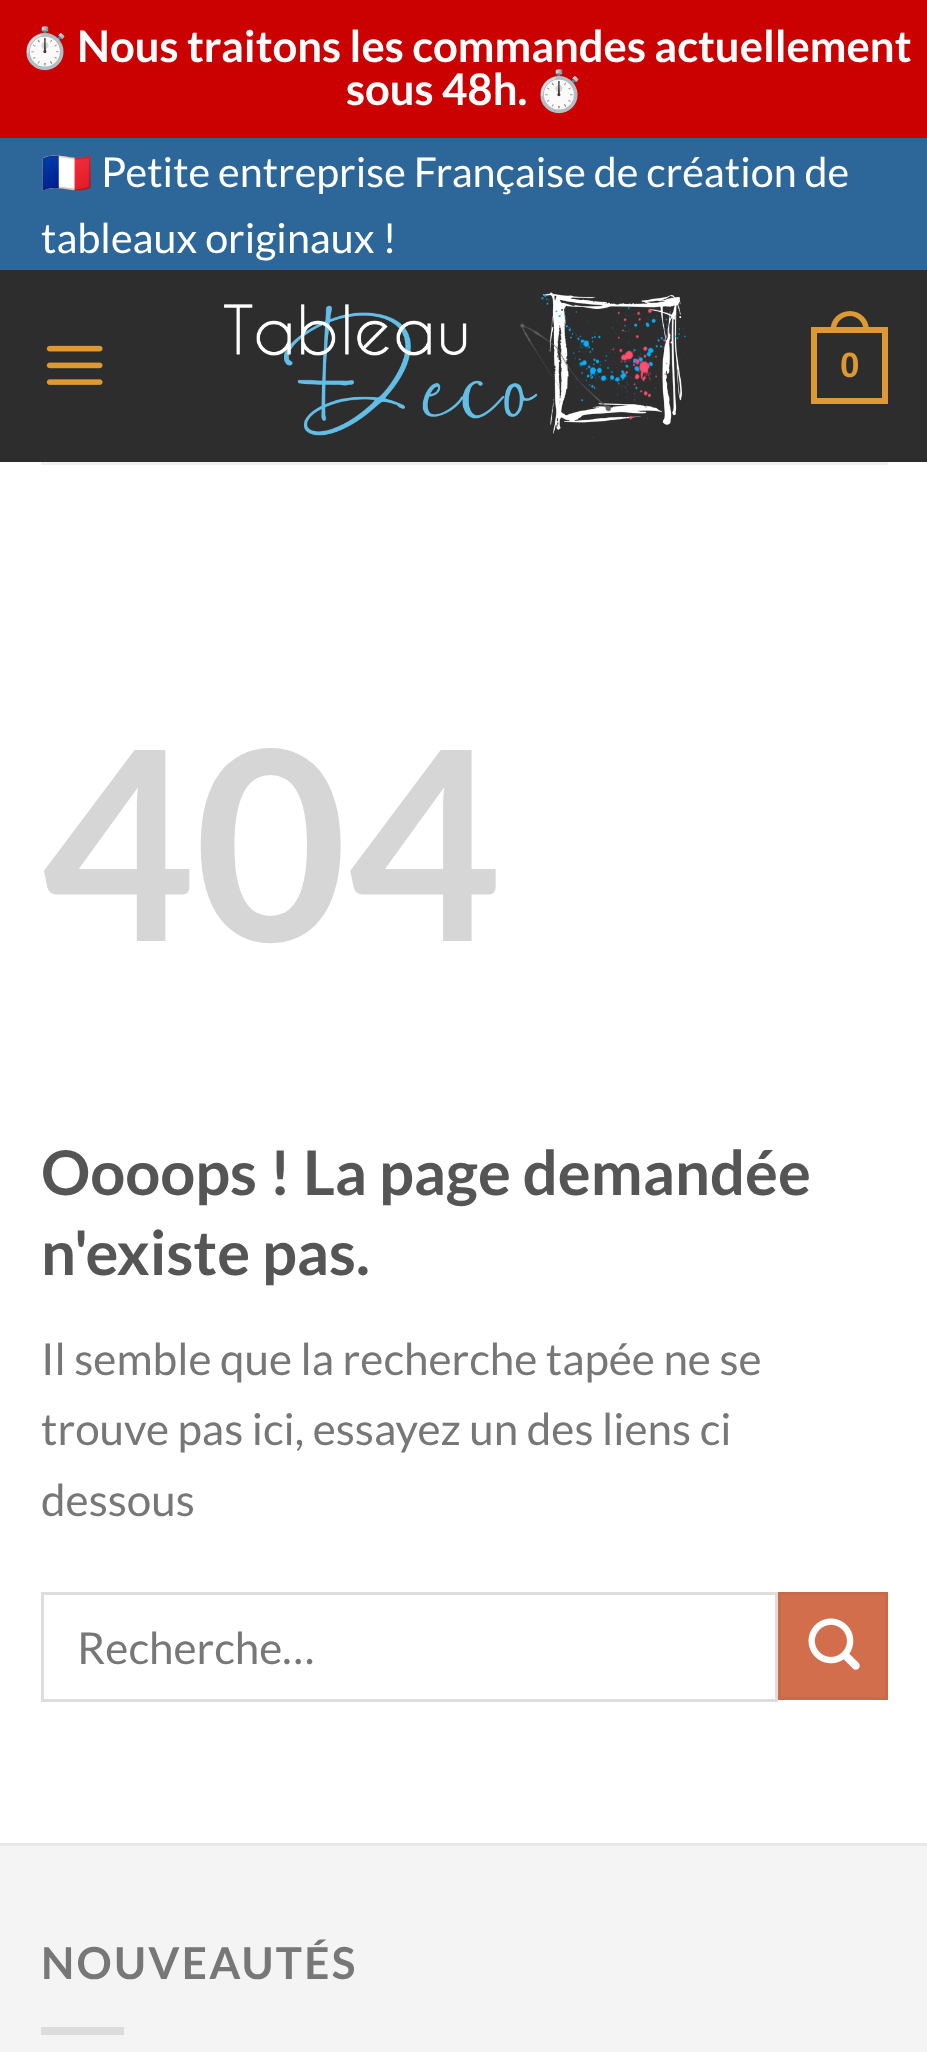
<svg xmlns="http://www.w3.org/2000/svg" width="927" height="2052">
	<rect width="100%" height="100%" fill="#FFFFFF" />
	<rect x="0" y="0" width="927" height="138" fill="#CB0000" />
	<text x="20" y="62" font-family="Noto Color Emoji" font-size="40" fill="#FFFFFF">⏱️</text>
	<g font-family="Lato" font-size="43.6" font-weight="700" fill="#FFFFFF">
		<text x="77" y="62">Nous traitons les commandes actuellement</text>
		<text x="346" y="105">sous 48h.</text>
	</g>
	<text x="534" y="105" font-family="Noto Color Emoji" font-size="40" fill="#FFFFFF">⏱️</text>
	<rect x="0" y="138" width="927" height="132" fill="#2D6799" />
	<text x="41" y="187" font-family="Noto Color Emoji" font-size="41.25" fill="#FFFFFF">🇫🇷</text>
	<g font-family="Lato" font-size="41.25" fill="#FFFFFF">
		<text x="101" y="187">Petite entreprise Française de création de</text>
		<text x="41" y="253">tableaux originaux !</text>
	</g>
	<rect x="0" y="270" width="927" height="192" fill="#2D2D2D" />
	<image x="46" y="345" width="57" height="40" href="assets/img1.png" />
	<image x="224" y="292" width="468" height="146" href="assets/img2.png" />
	<rect x="814" y="330" width="71" height="71" fill="none" stroke="#DD9933" stroke-width="6" />
	<path d="M850 311C860.5 311 869 319.5 869 330V333H830.5V330C830.5 319.5 839 311 850 311ZM850 316C857.5 316 863.5 322.5 863.5 330V333H836V330C836 322.5 842 316 850 316Z" fill="#DD9933" fill-rule="evenodd" />
	<text x="840" y="377" font-family="Liberation Sans" font-size="35" font-weight="700" fill="#DD9933">0</text>
	<rect x="41" y="462" width="847" height="3" fill="#F1F1F1" />
	<text x="41" y="941" font-family="Lato" font-size="264" font-weight="700" fill="#D6D6D6">404</text>
	<g font-family="Lato" font-size="61.6" font-weight="700" fill="#555555">
		<text x="41" y="1195">Oooops ! La page demandée</text>
		<text x="41" y="1275">n'existe pas.</text>
	</g>
	<g font-family="Lato" font-size="44" fill="#777777">
		<text x="41" y="1375">Il semble que la recherche tapée ne se</text>
		<text x="41" y="1445">trouve pas ici, essayez un des liens ci</text>
		<text x="41" y="1516">dessous</text>
	</g>
	<rect x="42.5" y="1593.5" width="734" height="107" fill="none" stroke="#DDDDDD" stroke-width="3" />
	<text x="77" y="1664" font-family="Lato" font-size="44" fill="#777777">Recherche…</text>
	<rect x="779.5" y="1593.5" width="107" height="105" fill="#D26E4B" stroke="#C86947" stroke-width="3" />
	<image x="808" y="1618" width="52" height="52" href="assets/img3.png" />
	<rect x="0" y="1846" width="927" height="206" fill="#F4F4F4" />
	<rect x="0" y="1843" width="927" height="3" fill="#E8E8E8" />
	<text x="41" y="1979" font-family="Lato" font-size="44" font-weight="700" letter-spacing="2.25" fill="#777777">NOUVEAUTÉS</text>
	<rect x="41" y="2027" width="83" height="8" fill="#DCDCDC" />
</svg>
